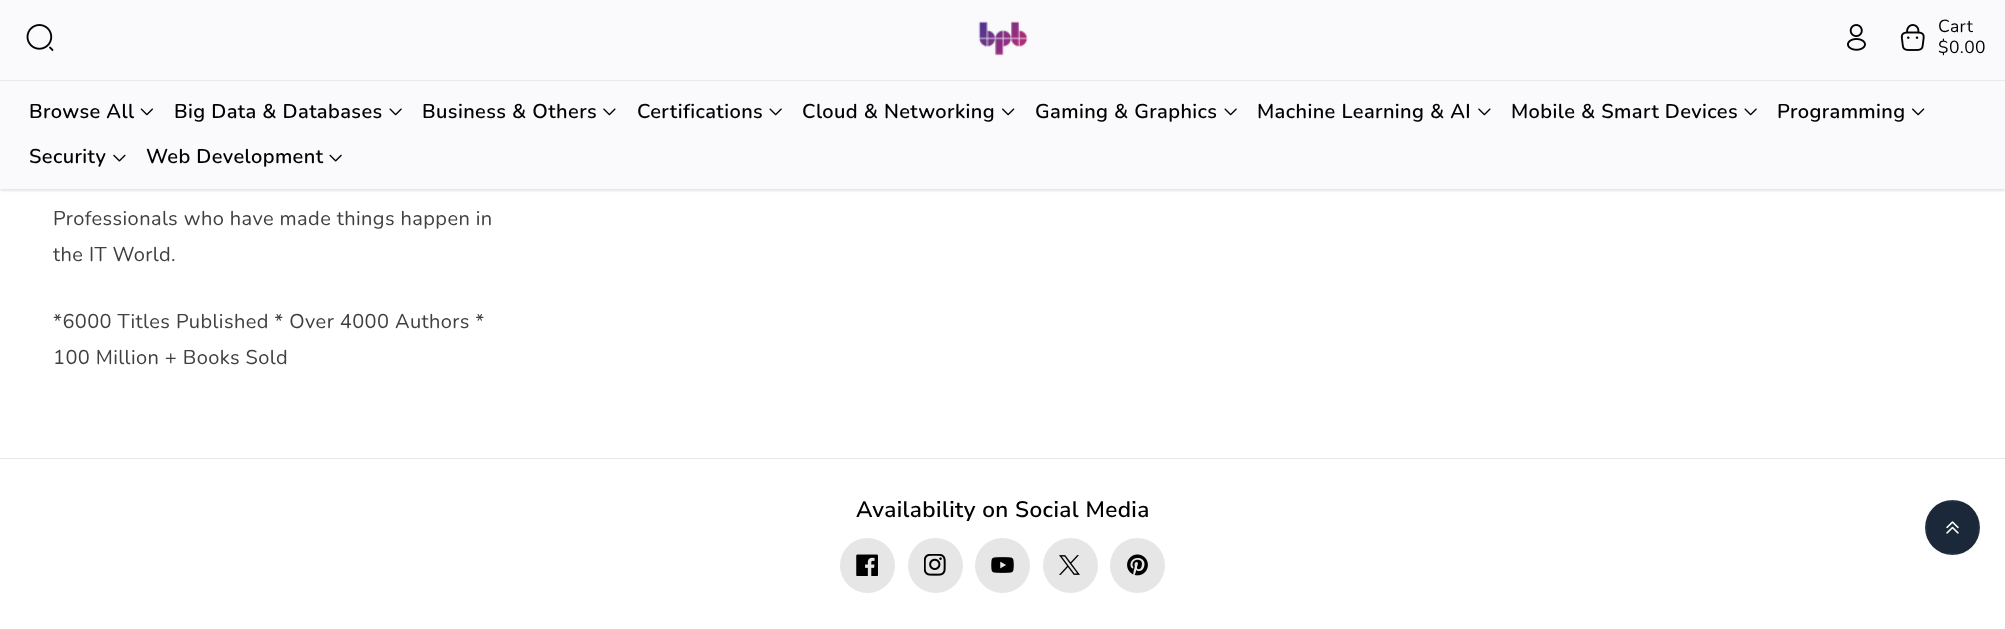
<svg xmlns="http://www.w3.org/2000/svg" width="2005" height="629">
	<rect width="100%" height="100%" fill="#FFFFFF" />
	<rect x="0" y="3" width="2005" height="188" fill="#000000" fill-opacity="0.1" filter="blur(1px)" />
	<rect x="0" y="0" width="2005" height="189" fill="#FAFAFC" />
	<image x="26" y="24" width="28" height="27" href="assets/img1.png" />
	<image x="978" y="21" width="50" height="35" href="assets/img2.png" />
	<image x="1847" y="24" width="19" height="27" href="assets/img3.png" />
	<image x="1900" y="24" width="25" height="27" href="assets/img4.png" />
	<g font-family="Nunito" font-size="17.5" letter-spacing="0.4" fill="#000000">
		<text x="1938" y="32">Cart</text>
		<text x="1938" y="53">$0.00</text>
	</g>
	<rect x="0" y="80" width="2005" height="1" fill="#E9E9EA" />
	<text x="29" y="118" font-family="Nunito" font-size="20" font-weight="600" letter-spacing="0.4" fill="#000000">Browse All</text>
	<image x="140" y="108" width="13" height="8" href="assets/img5.png" />
	<text x="174" y="118" font-family="Nunito" font-size="20" font-weight="600" letter-spacing="0.4" fill="#000000">Big Data &amp; Databases</text>
	<image x="389" y="108" width="13" height="8" href="assets/img6.png" />
	<text x="422" y="118" font-family="Nunito" font-size="20" font-weight="600" letter-spacing="0.4" fill="#000000">Business &amp; Others</text>
	<image x="603" y="108" width="13" height="8" href="assets/img7.png" />
	<text x="637" y="118" font-family="Nunito" font-size="20" font-weight="600" letter-spacing="0.4" fill="#000000">Certifications</text>
	<image x="769" y="108" width="13" height="8" href="assets/img6.png" />
	<text x="802" y="118" font-family="Nunito" font-size="20" font-weight="600" letter-spacing="0.4" fill="#000000">Cloud &amp; Networking</text>
	<image x="1002" y="108" width="13" height="8" href="assets/img8.png" />
	<text x="1035" y="118" font-family="Nunito" font-size="20" font-weight="600" letter-spacing="0.4" fill="#000000">Gaming &amp; Graphics</text>
	<image x="1224" y="108" width="13" height="8" href="assets/img6.png" />
	<text x="1257" y="118" font-family="Nunito" font-size="20" font-weight="600" letter-spacing="0.4" fill="#000000">Machine Learning &amp; AI</text>
	<image x="1478" y="108" width="13" height="8" href="assets/img7.png" />
	<text x="1511" y="118" font-family="Nunito" font-size="20" font-weight="600" letter-spacing="0.4" fill="#000000">Mobile &amp; Smart Devices</text>
	<image x="1744" y="108" width="13" height="8" href="assets/img6.png" />
	<text x="1777" y="118" font-family="Nunito" font-size="20" font-weight="600" letter-spacing="0.4" fill="#000000">Programming</text>
	<image x="1912" y="108" width="13" height="8" href="assets/img8.png" />
	<text x="29" y="163" font-family="Nunito" font-size="20" font-weight="600" letter-spacing="0.4" fill="#000000">Security</text>
	<image x="113" y="154" width="13" height="8" href="assets/img9.png" />
	<text x="146" y="163" font-family="Nunito" font-size="20" font-weight="600" letter-spacing="0.4" fill="#000000">Web Development</text>
	<image x="329" y="154" width="13" height="8" href="assets/img10.png" />
	<g font-family="Nunito" font-size="20" letter-spacing="0.4" fill="#404040">
		<text x="53" y="225">Professionals who have made things happen in</text>
		<text x="53" y="261">the IT World.</text>
		<text x="53" y="328">*6000 Titles Published * Over 4000 Authors *</text>
		<text x="53" y="364">100 Million + Books Sold</text>
	</g>
	<rect x="0" y="458" width="2005" height="1" fill="#E6E6E6" />
	<text x="856" y="517" font-family="Nunito Sans" font-size="22.5" font-weight="600" letter-spacing="0.4" fill="#000000">Availability on Social Media</text>
	<circle cx="867.5" cy="565.5" r="27.5" fill="#E6E6E6" />
	<image x="856" y="554" width="22" height="22" href="assets/img11.png" />
	<circle cx="935.5" cy="565.5" r="27.5" fill="#E6E6E6" />
	<image x="924" y="554" width="22" height="22" href="assets/img12.png" />
	<circle cx="1002.5" cy="565.5" r="27.5" fill="#E6E6E6" />
	<image x="991" y="557" width="23" height="16" href="assets/img13.png" />
	<circle cx="1070.5" cy="565.5" r="27.5" fill="#E6E6E6" />
	<image x="1059" y="555" width="21" height="20" href="assets/img14.png" />
	<circle cx="1137.5" cy="565.5" r="27.5" fill="#E6E6E6" />
	<image x="1127" y="554" width="21" height="22" href="assets/img15.png" />
	<circle cx="1952.5" cy="527.5" r="27.5" fill="#1B283A" />
	<image x="1946" y="521" width="13" height="13" href="assets/img16.png" />
	<rect x="1925.5" y="500.5" width="54" height="54" fill="none" stroke="#FFFFFF" stroke-opacity="0.05" />
	<rect x="1926" y="501" width="53" height="53" fill="none" stroke="#FFFFFF" stroke-opacity="0.05" stroke-width="2" />
</svg>
